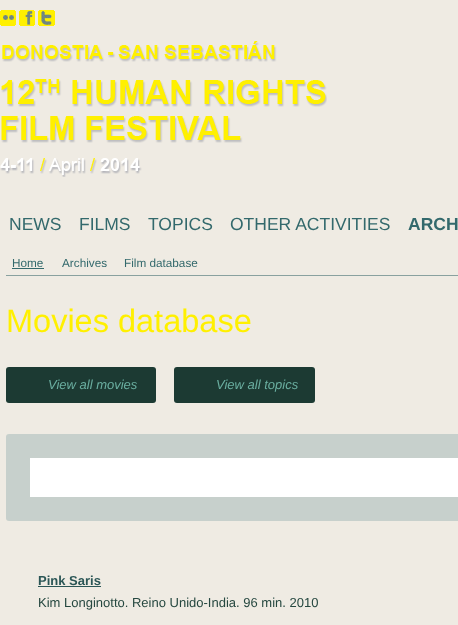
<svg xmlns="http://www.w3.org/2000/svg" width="458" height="625">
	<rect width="100%" height="100%" fill="#EFEBE3" />
	<image x="0" y="10" width="16" height="16" href="assets/img1.png" />
	<image x="19" y="10" width="16" height="16" href="assets/img2.png" />
	<image x="38" y="10" width="17" height="16" href="assets/img3.png" />
	<image x="0" y="41" width="327" height="136" href="assets/img4.png" />
	<g font-family="Liberation Sans" font-size="17.5" fill="#33696C">
		<text x="9" y="230">NEWS</text>
		<text x="79" y="230">FILMS</text>
		<text x="148" y="230">TOPICS</text>
		<text x="230" y="230">OTHER ACTIVITIES</text>
	</g>
	<text x="408" y="230" font-family="Liberation Sans" font-size="17.5" font-weight="700" fill="#33696C">ARCH</text>
	<rect x="6" y="275" width="452" height="1" fill="#89A19F" />
	<text x="12" y="267" font-family="Liberation Sans" font-size="11.75" fill="#33696C">Home</text>
	<rect x="12" y="268" width="32" height="1" fill="#33696C" />
	<g font-family="Liberation Sans" font-size="11.75" fill="#33696C">
		<text x="62" y="267">Archives</text>
		<text x="124" y="267">Film database</text>
	</g>
	<text x="6" y="332" font-family="Liberation Sans" font-size="32.5" fill="#FFF000">Movies database</text>
	<rect x="6" y="367" width="150" height="36" rx="3" fill="#1C3A33" />
	<text x="48" y="389" font-family="Liberation Sans" font-size="13" font-style="italic" fill="#6AAEA0">View all movies</text>
	<rect x="174" y="367" width="141" height="36" rx="3" fill="#1C3A33" />
	<text x="216" y="389" font-family="Liberation Sans" font-size="13" font-style="italic" fill="#6AAEA0">View all topics</text>
	<rect x="6" y="434" width="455" height="87" rx="3" fill="#C7D0CC" />
	<rect x="30" y="458" width="428" height="39" fill="#FFFFFF" />
	<text x="38" y="585" font-family="Liberation Sans" font-size="13" font-weight="700" fill="#2B5656">Pink Saris</text>
	<rect x="38" y="586" width="63" height="1" fill="#2B5656" />
	<text x="38" y="607" font-family="Liberation Sans" font-size="13" fill="#264840">Kim Longinotto. Reino Unido-India. 96 min. 2010</text>
</svg>
